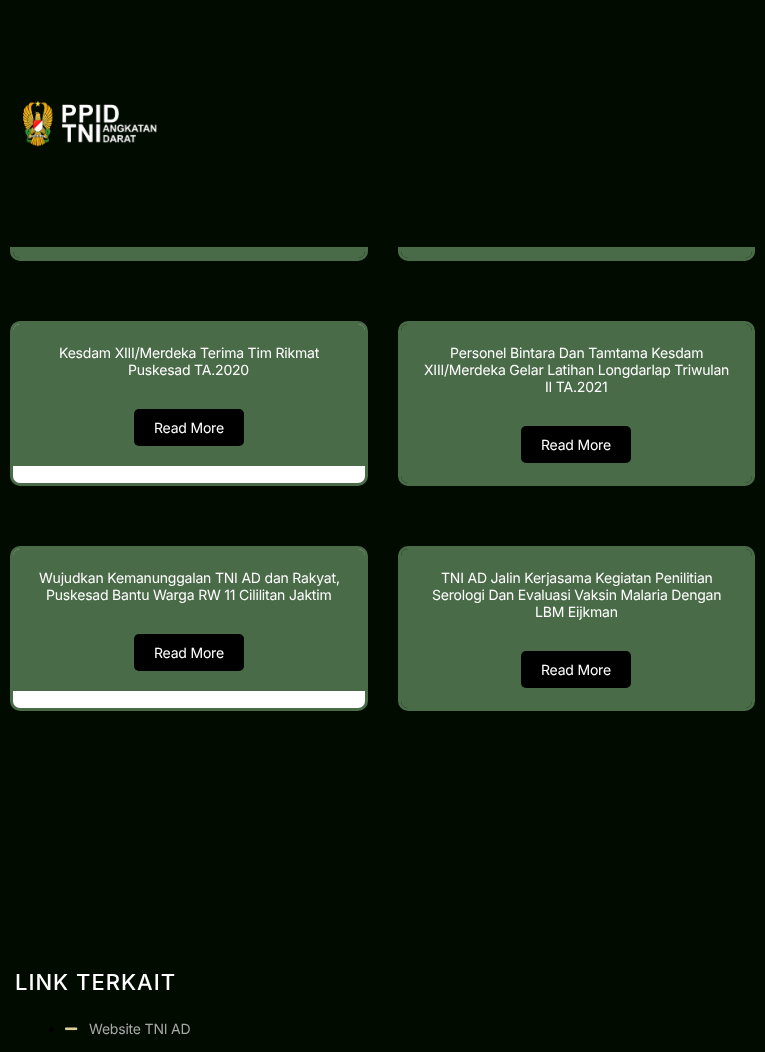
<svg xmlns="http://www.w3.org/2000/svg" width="765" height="1052">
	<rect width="100%" height="100%" fill="#010B00" />
	<rect x="11.5" y="114.5" width="355" height="145" rx="8.5" fill="none" stroke="#4A6B48" stroke-width="3" />
	<rect x="13" y="116" width="352" height="142" rx="7" fill="#4A6B48" />
	<rect x="399.5" y="114.5" width="354" height="145" rx="8.5" fill="none" stroke="#4A6B48" stroke-width="3" />
	<rect x="401" y="116" width="351" height="142" rx="7" fill="#4A6B48" />
	<rect x="10" y="113" width="745" height="134" fill="#010B00" />
	<image x="22" y="100" width="135" height="47" href="assets/img1.png" />
	<rect x="11.5" y="322.5" width="355" height="162" rx="8.5" fill="#FFFFFF" stroke="#4A6B48" stroke-width="3" />
	<path d="M20 324H358C362 324 365 327 365 331V466H13V331C13 327 16 324 20 324Z" fill="#4A6B48" />
	<g font-family="Inter" font-size="14" letter-spacing="-0.2" fill="#FFFFFF">
		<text x="59" y="358">Kesdam XIII/Merdeka Terima Tim Rikmat</text>
		<text x="128" y="375">Puskesad TA.2020</text>
	</g>
	<rect x="134" y="409" width="110" height="37" rx="5" fill="#000000" />
	<text x="154" y="433" font-family="Inter" font-size="14" letter-spacing="-0.2" fill="#FFFFFF">Read More</text>
	<rect x="399.5" y="322.5" width="354" height="162" rx="8.5" fill="none" stroke="#4A6B48" stroke-width="3" />
	<rect x="401" y="324" width="351" height="159" rx="7" fill="#4A6B48" />
	<g font-family="Inter" font-size="14" letter-spacing="-0.2" fill="#FFFFFF">
		<text x="450" y="358">Personel Bintara Dan Tamtama Kesdam</text>
		<text x="424" y="375">XIII/Merdeka Gelar Latihan Longdarlap Triwulan</text>
		<text x="545" y="392">II TA.2021</text>
	</g>
	<rect x="521" y="426" width="110" height="37" rx="5" fill="#000000" />
	<text x="541" y="450" font-family="Inter" font-size="14" letter-spacing="-0.2" fill="#FFFFFF">Read More</text>
	<rect x="11.5" y="547.5" width="355" height="162" rx="8.5" fill="#FFFFFF" stroke="#4A6B48" stroke-width="3" />
	<path d="M20 549H358C362 549 365 552 365 556V691H13V556C13 552 16 549 20 549Z" fill="#4A6B48" />
	<g font-family="Inter" font-size="14" letter-spacing="-0.2" fill="#FFFFFF">
		<text x="39" y="583">Wujudkan Kemanunggalan TNI AD dan Rakyat,</text>
		<text x="46" y="600">Puskesad Bantu Warga RW 11 Cililitan Jaktim</text>
	</g>
	<rect x="134" y="634" width="110" height="37" rx="5" fill="#000000" />
	<text x="154" y="658" font-family="Inter" font-size="14" letter-spacing="-0.2" fill="#FFFFFF">Read More</text>
	<rect x="399.5" y="547.5" width="354" height="162" rx="8.5" fill="none" stroke="#4A6B48" stroke-width="3" />
	<rect x="401" y="549" width="351" height="159" rx="7" fill="#4A6B48" />
	<g font-family="Inter" font-size="14" letter-spacing="-0.2" fill="#FFFFFF">
		<text x="441" y="583">TNI AD Jalin Kerjasama Kegiatan Penilitian</text>
		<text x="432" y="600">Serologi Dan Evaluasi Vaksin Malaria Dengan</text>
		<text x="535" y="617">LBM Eijkman</text>
	</g>
	<rect x="521" y="651" width="110" height="37" rx="5" fill="#000000" />
	<text x="541" y="675" font-family="Inter" font-size="14" letter-spacing="-0.2" fill="#FFFFFF">Read More</text>
	<text x="15" y="990" font-family="Inter" font-size="22" font-weight="500" letter-spacing="1" fill="#FFFFFF">LINK TERKAIT</text>
	<circle cx="51.5" cy="1029.5" r="2.5" fill="#000000" />
	<image x="65" y="1027" width="13" height="4" href="assets/img2.png" />
	<text x="89" y="1034" font-family="Inter" font-size="14" letter-spacing="-0.2" fill="#A7A7A7">Website TNI AD</text>
</svg>
